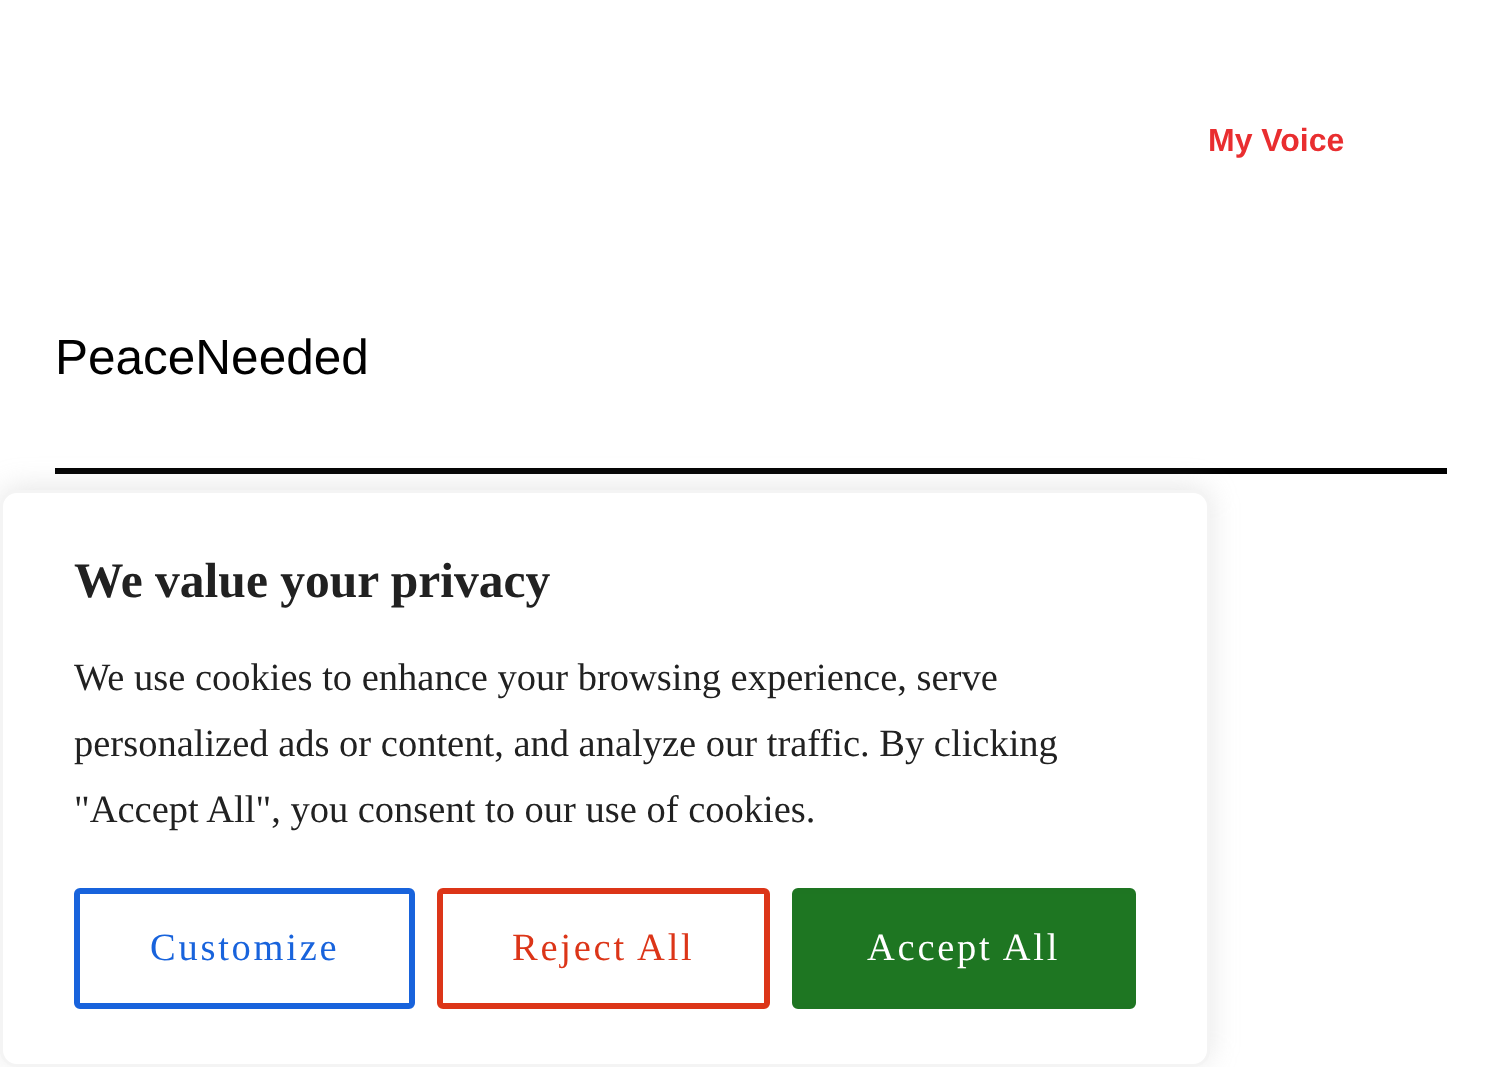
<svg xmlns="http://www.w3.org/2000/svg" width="1501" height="1067">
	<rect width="100%" height="100%" fill="#FFFFFF" />
	<text x="1208" y="151" font-family="Liberation Sans" font-size="32" font-weight="700" fill="#E92E30">My Voice</text>
	<text x="55" y="374" font-family="Liberation Sans" font-size="49.5" fill="#000000">PeaceNeeded</text>
	<rect x="55" y="468" width="1392" height="6" fill="#000000" />
	<rect x="0" y="487" width="1210" height="577" rx="17" fill="#ACABAB" fill-opacity="0.3" filter="blur(14px)" />
	<rect x="1.5" y="491.5" width="1207" height="574" rx="15.5" fill="#FFFFFF" stroke="#F4F4F4" stroke-width="3" />
	<text x="74" y="597" font-family="Liberation Serif" font-size="49.5" font-weight="700" fill="#212121">We value your privacy</text>
	<g font-family="Liberation Serif" font-size="38.5" fill="#212121">
		<text x="74" y="690">We use cookies to enhance your browsing experience, serve</text>
		<text x="74" y="756">personalized ads or content, and analyze our traffic. By clicking</text>
		<text x="74" y="822">"Accept All", you consent to our use of cookies.</text>
	</g>
	<rect x="77" y="891" width="335" height="115" rx="3" fill="none" stroke="#1863DC" stroke-width="6" />
	<text x="150" y="960" font-family="Liberation Serif" font-size="38.5" letter-spacing="2.75" fill="#1863DC">Customize</text>
	<rect x="440" y="891" width="327" height="115" rx="3" fill="none" stroke="#DC3518" stroke-width="6" />
	<text x="512" y="960" font-family="Liberation Serif" font-size="38.5" letter-spacing="2.75" fill="#DC3518">Reject All</text>
	<rect x="795" y="891" width="338" height="115" rx="3" fill="#1E7622" stroke="#1E7522" stroke-width="6" />
	<text x="867" y="960" font-family="Liberation Serif" font-size="38.5" letter-spacing="2.75" fill="#FFFFFF">Accept All</text>
</svg>
